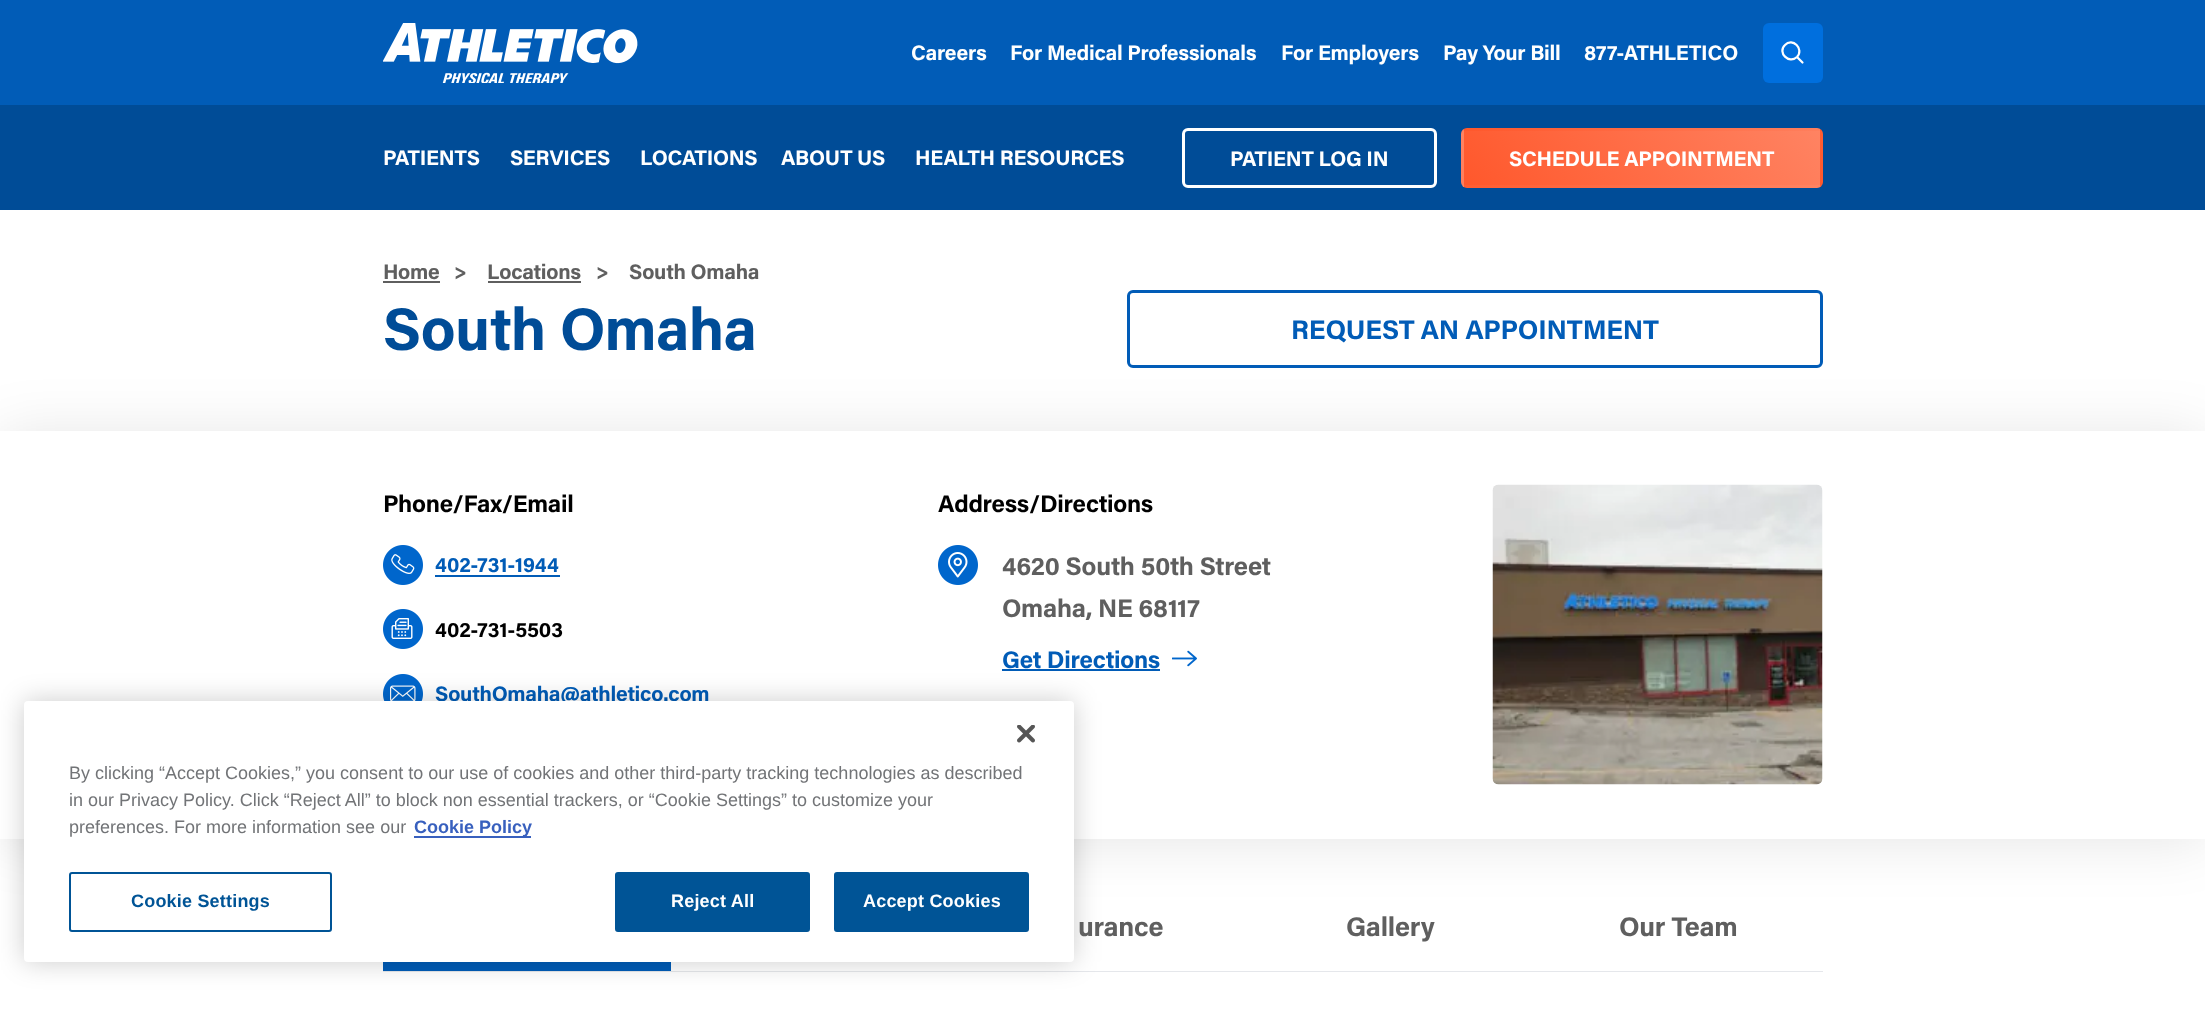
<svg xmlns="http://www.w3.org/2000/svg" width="2205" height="1009">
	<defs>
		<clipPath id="clip1"><rect x="1461" y="128" width="362" height="60" rx="6" /></clipPath>
		<linearGradient id="g1" gradientUnits="userSpaceOnUse" x1="1410" y1="7" x2="1163" y2="200"><stop offset="0" stop-color="#FF8362" /><stop offset="1" stop-color="#FF582C" /></linearGradient>
		<linearGradient id="g2" gradientUnits="userSpaceOnUse" x1="1765" y1="7" x2="1518" y2="200"><stop offset="0" stop-color="#FF8362" /><stop offset="1" stop-color="#FF582C" /></linearGradient>
		<linearGradient id="g3" gradientUnits="userSpaceOnUse" x1="2121" y1="7" x2="1874" y2="200"><stop offset="0" stop-color="#FF8362" /><stop offset="1" stop-color="#FF582C" /></linearGradient>
		<linearGradient id="g4" gradientUnits="userSpaceOnUse" x1="1410" y1="61" x2="1163" y2="254"><stop offset="0" stop-color="#FF8362" /><stop offset="1" stop-color="#FF582C" /></linearGradient>
		<linearGradient id="g5" gradientUnits="userSpaceOnUse" x1="1765" y1="61" x2="1518" y2="254"><stop offset="0" stop-color="#FF8362" /><stop offset="1" stop-color="#FF582C" /></linearGradient>
		<linearGradient id="g6" gradientUnits="userSpaceOnUse" x1="2121" y1="61" x2="1874" y2="254"><stop offset="0" stop-color="#FF8362" /><stop offset="1" stop-color="#FF582C" /></linearGradient>
		<linearGradient id="g7" gradientUnits="userSpaceOnUse" x1="1410" y1="115" x2="1163" y2="308"><stop offset="0" stop-color="#FF8362" /><stop offset="1" stop-color="#FF582C" /></linearGradient>
		<linearGradient id="g8" gradientUnits="userSpaceOnUse" x1="1765" y1="115" x2="1518" y2="308"><stop offset="0" stop-color="#FF8362" /><stop offset="1" stop-color="#FF582C" /></linearGradient>
		<linearGradient id="g9" gradientUnits="userSpaceOnUse" x1="2121" y1="115" x2="1874" y2="308"><stop offset="0" stop-color="#FF8362" /><stop offset="1" stop-color="#FF582C" /></linearGradient>
		<clipPath id="clip2"><path d="M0 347H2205V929H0ZM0 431H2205V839H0Z" clip-rule="evenodd" /></clipPath>
	</defs>
	<rect width="100%" height="100%" fill="#FFFFFF" />
	<rect x="0" y="0" width="2205" height="105" fill="#015CB7" />
	<image x="383" y="23" width="255" height="60" href="assets/img1.png" />
	<g font-family="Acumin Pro" font-size="21" font-weight="700" letter-spacing="-0.25" fill="#FFFFFF">
		<text x="911" y="60">Careers</text>
		<text x="1010" y="60">For Medical Professionals</text>
		<text x="1281" y="60">For Employers</text>
		<text x="1443" y="60">Pay Your Bill</text>
		<text x="1584" y="60">877-ATHLETICO</text>
	</g>
	<rect x="1763" y="23" width="60" height="60" rx="6" fill="#006FDE" />
	<path d="M1802.5 62.5L1797 57M1797 57C1804.5 49 1792.5 37 1785 45C1777 52.5 1789 64.5 1797 57Z" fill="none" stroke="#FFFFFF" stroke-width="2.2" stroke-linecap="round" stroke-linejoin="round" />
	<rect x="0" y="105" width="2205" height="105" fill="#004C97" />
	<g font-family="Acumin Pro" font-size="21" font-weight="700" letter-spacing="-0.25" fill="#FFFFFF">
		<text x="383" y="165">PATIENTS</text>
		<text x="510" y="165">SERVICES</text>
		<text x="640" y="165">LOCATIONS</text>
		<text x="781" y="165">ABOUT US</text>
		<text x="915" y="165">HEALTH RESOURCES</text>
	</g>
	<rect x="1183.5" y="129.5" width="252" height="57" rx="4.5" fill="none" stroke="#FFFFFF" stroke-width="3" />
	<text x="1230" y="166" font-family="Acumin Pro" font-size="21" font-weight="700" letter-spacing="-0.25" fill="#FFFFFF">PATIENT LOG IN</text>
	<g clip-path="url(#clip1)">
		<rect x="1461" y="128" width="3" height="3" fill="url(#g1)" />
		<rect x="1464" y="128" width="356" height="3" fill="url(#g2)" />
		<rect x="1820" y="128" width="3" height="3" fill="url(#g3)" />
		<rect x="1461" y="131" width="3" height="54" fill="url(#g4)" />
	</g>
	<rect x="1464" y="131" width="356" height="54" fill="url(#g5)" />
	<g clip-path="url(#clip1)">
		<rect x="1820" y="131" width="3" height="54" fill="url(#g6)" />
		<rect x="1461" y="185" width="3" height="3" fill="url(#g7)" />
		<rect x="1464" y="185" width="356" height="3" fill="url(#g8)" />
		<rect x="1820" y="185" width="3" height="3" fill="url(#g9)" />
	</g>
	<text x="1509" y="166" font-family="Acumin Pro" font-size="21" font-weight="700" letter-spacing="-0.25" fill="#FFFFFF">SCHEDULE APPOINTMENT</text>
	<text x="383" y="279" font-family="Acumin Pro" font-size="21" font-weight="700" letter-spacing="-0.25" fill="#5F5F5F">Home</text>
	<rect x="383" y="281" width="57" height="2" fill="#5F5F5F" />
	<g font-family="Acumin Pro" font-size="21" font-weight="700" letter-spacing="-0.25" fill="#5F5F5F">
		<text x="454" y="279">&gt;</text>
		<text x="487" y="279">Locations</text>
	</g>
	<rect x="488" y="281" width="93" height="2" fill="#5F5F5F" />
	<g font-family="Acumin Pro" font-size="21" font-weight="700" letter-spacing="-0.25" fill="#5F5F5F">
		<text x="596" y="279">&gt;</text>
		<text x="629" y="279">South Omaha</text>
	</g>
	<g clip-path="url(#clip2)">
		<rect x="0" y="434" width="2205" height="408" fill="#000000" fill-opacity="0.1" filter="blur(28.5px)" />
	</g>
	<text x="383" y="350" font-family="Acumin Pro" font-size="60" font-weight="700" letter-spacing="-0.6" fill="#004C97">South Omaha</text>
	<rect x="1128.5" y="291.5" width="693" height="75" rx="4.5" fill="none" stroke="#015CB7" stroke-width="3" />
	<text x="1291" y="339" font-family="Acumin Pro" font-size="27" font-weight="700" letter-spacing="-0.25" fill="#015CB7">REQUEST AN APPOINTMENT</text>
	<text x="383" y="512" font-family="Acumin Pro" font-size="24" font-weight="700" letter-spacing="-0.25" fill="#000000">Phone/Fax/Email</text>
	<image x="383" y="545" width="40" height="40" href="assets/img2.png" />
	<text x="435" y="572" font-family="Acumin Pro" font-size="21" font-weight="700" letter-spacing="-0.25" fill="#015CB7">402-731-1944</text>
	<rect x="435" y="575" width="125" height="2" fill="#015CB7" />
	<image x="383" y="609" width="40" height="40" href="assets/img3.png" />
	<text x="435" y="637" font-family="Acumin Pro" font-size="21" font-weight="700" letter-spacing="-0.25" fill="#000000">402-731-5503</text>
	<image x="383" y="674" width="40" height="27" href="assets/img4.png" />
	<text x="435" y="701" font-family="Acumin Pro" font-size="21" font-weight="700" letter-spacing="-0.25" fill="#015CB7">SouthOmaha@athletico.com</text>
	<text x="938" y="512" font-family="Acumin Pro" font-size="24" font-weight="700" letter-spacing="-0.25" fill="#000000">Address/Directions</text>
	<image x="938" y="545" width="40" height="40" href="assets/img5.png" />
	<g font-family="Acumin Pro" font-size="25.5" font-weight="700" letter-spacing="-0.25" fill="#5F5F5F">
		<text x="1002" y="575">4620 South 50th Street</text>
		<text x="1002" y="617">Omaha, NE 68117</text>
	</g>
	<text x="1002" y="668" font-family="Acumin Pro" font-size="24" font-weight="700" letter-spacing="-0.25" fill="#015CB7">Get Directions</text>
	<rect x="1002" y="669" width="158" height="2" fill="#015CB7" />
	<image x="1172" y="650" width="25" height="17" href="assets/img6.png" />
	<image x="1492" y="484" width="331" height="301" href="assets/img7.png" />
	<rect x="383" y="971" width="1440" height="1" fill="#E5E7EB" />
	<rect x="383" y="962" width="288" height="9" fill="#015CB7" />
	<rect x="24" y="701" width="1050" height="261" rx="4" fill="#000000" fill-opacity="0.2" filter="blur(13.5px)" />
	<rect x="24" y="701" width="1050" height="261" rx="4" fill="#FFFFFF" />
	<image x="1017" y="725" width="18" height="18" href="assets/img8.png" />
	<g font-family="Liberation Sans" font-size="18" fill="#727477">
		<text x="69" y="779">By clicking “Accept Cookies,” you consent to our use of cookies and other third-party tracking technologies as described</text>
		<text x="69" y="806">in our Privacy Policy. Click “Reject All” to block non essential trackers, or “Cookie Settings” to customize your</text>
		<text x="69" y="833">preferences. For more information see our</text>
	</g>
	<rect x="414" y="836" width="117" height="2" fill="#3860BE" />
	<text x="414" y="833" font-family="Liberation Sans" font-size="18" font-weight="700" fill="#3860BE">Cookie Policy</text>
	<rect x="70" y="873" width="261" height="58" rx="2" fill="none" stroke="#005496" stroke-width="2" />
	<text x="131" y="907" font-family="Liberation Sans" font-size="18" font-weight="700" letter-spacing="0.2" fill="#005496">Cookie Settings</text>
	<rect x="616" y="873" width="193" height="58" rx="2" fill="#005496" stroke="#005496" stroke-width="2" />
	<text x="671" y="907" font-family="Liberation Sans" font-size="18" font-weight="700" letter-spacing="0.2" fill="#FFFFFF">Reject All</text>
	<rect x="835" y="873" width="193" height="58" rx="2" fill="#005496" stroke="#005496" stroke-width="2" />
	<text x="863" y="907" font-family="Liberation Sans" font-size="18" font-weight="700" letter-spacing="0.2" fill="#FFFFFF">Accept Cookies</text>
	<g font-family="Acumin Pro" font-size="27" font-weight="700" letter-spacing="-0.25" fill="#5F5F5F">
		<text x="1078" y="936">urance</text>
		<text x="1346" y="936">Gallery</text>
		<text x="1619" y="936">Our Team</text>
	</g>
</svg>
